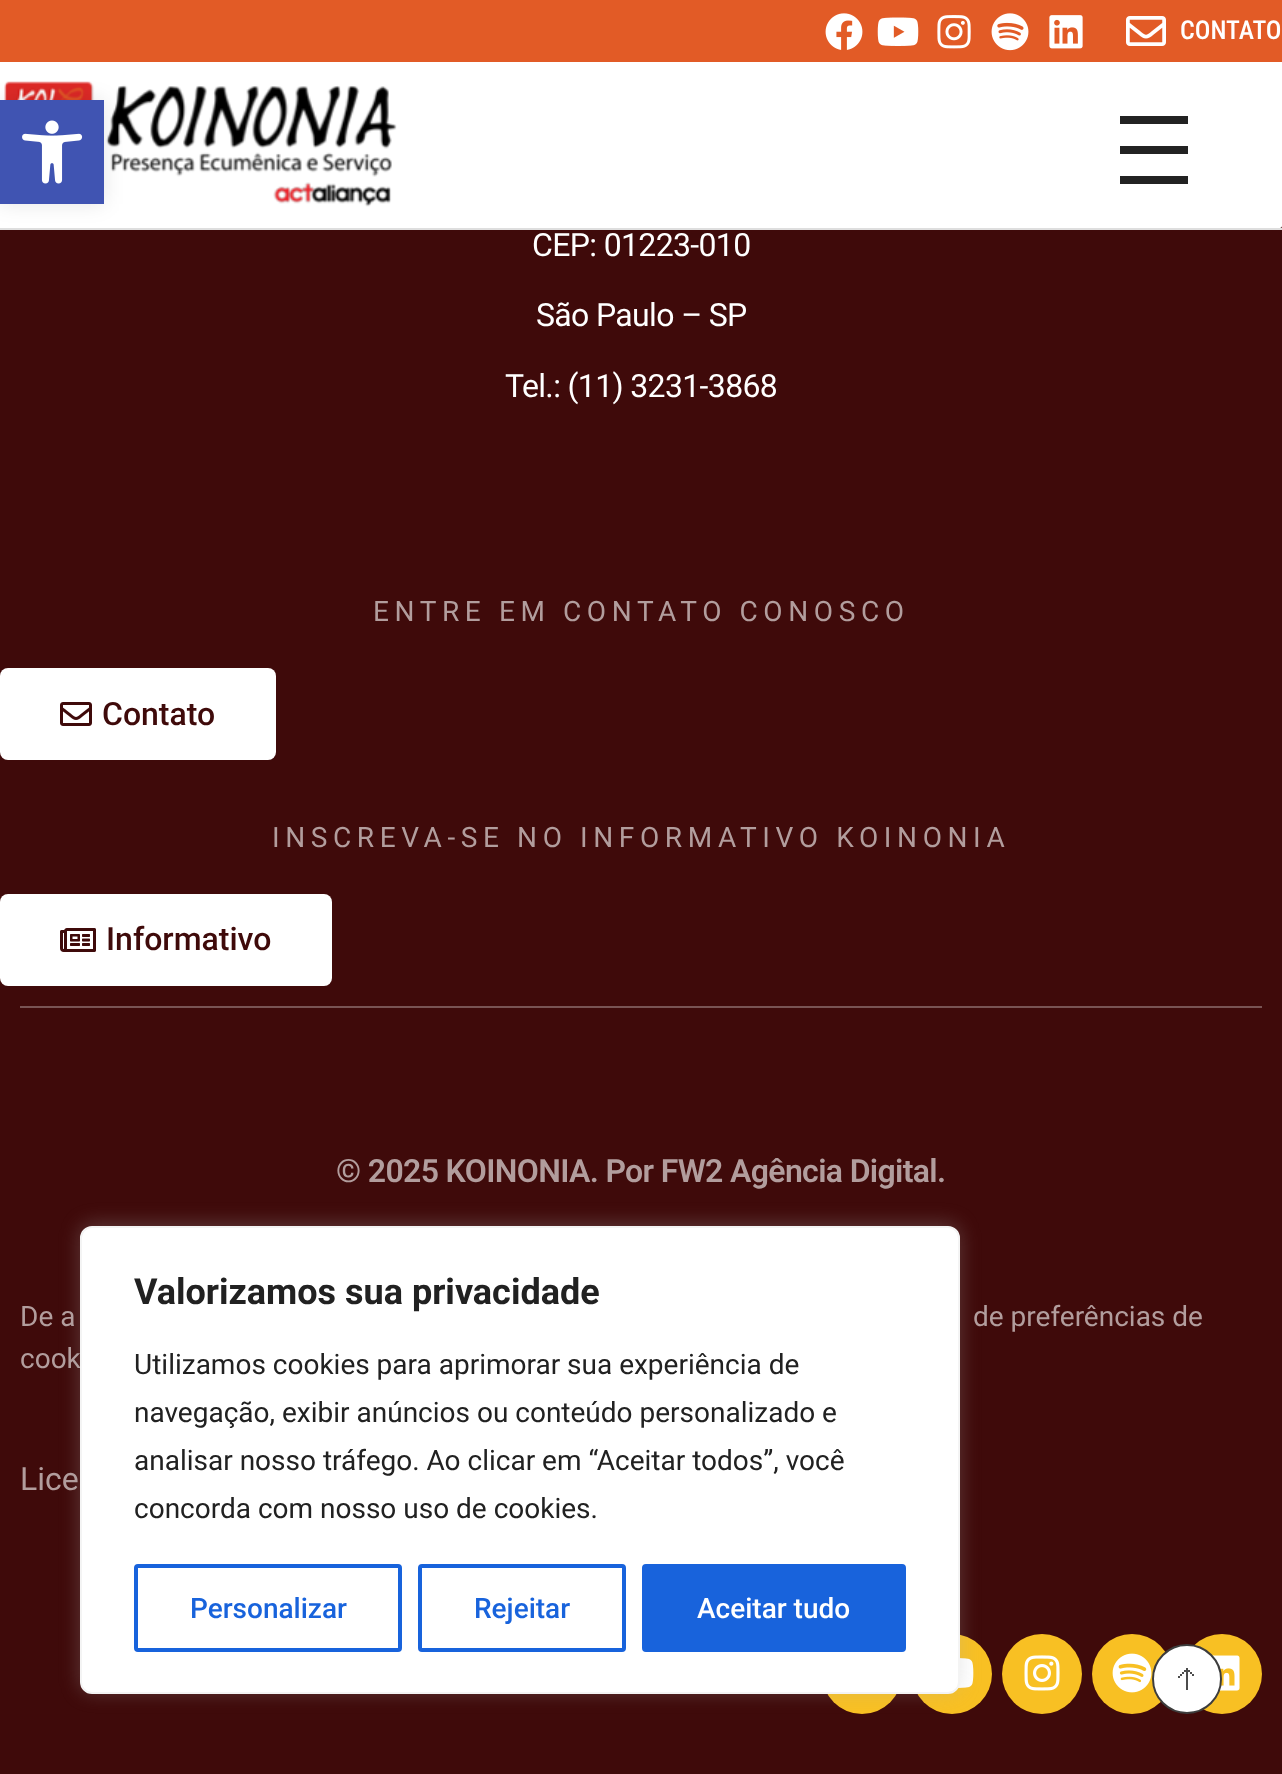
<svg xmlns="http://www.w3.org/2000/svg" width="1282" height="1774">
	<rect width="100%" height="100%" fill="#3F0A0A" />
	<rect x="535" y="233" width="214" height="5" fill="#222222" fill-opacity="0.03" />
	<rect x="0" y="228" width="1282" height="2" fill="#DEDEDE" />
	<rect x="0" y="0" width="1282" height="62" fill="#E25B26" />
	<image x="825" y="13" width="38" height="37" href="assets/img1.png" />
	<image x="877" y="17" width="42" height="29" href="assets/img2.png" />
	<image x="937" y="15" width="34" height="34" href="assets/img3.png" />
	<image x="991" y="13" width="38" height="38" href="assets/img4.png" />
	<image x="1049" y="15" width="34" height="34" href="assets/img5.png" />
	<image x="1126" y="16" width="40" height="30" href="assets/img6.png" />
	<text x="1180" y="39" font-family="Roboto Condensed" font-size="26" font-weight="500" fill="#FFFFFF">CONTATO</text>
	<path d="M0 62H1282V226C1282 227 1281 228 1280 228H0Z" fill="#FFFFFF" />
	<image x="4" y="81" width="393" height="126" href="assets/img7.png" />
	<rect x="1120" y="116" width="68" height="8" fill="#222222" />
	<rect x="1120" y="146" width="68" height="8" fill="#222222" />
	<rect x="1120" y="176" width="68" height="8" fill="#222222" />
	<g font-family="Roboto" font-size="32" letter-spacing="-0.65" fill="#FFFFFF">
		<text x="532" y="256">CEP: 01223-010</text>
		<text x="536" y="326">São Paulo – SP</text>
		<text x="505" y="397">Tel.: (11) 3231-3868</text>
	</g>
	<text x="373" y="621" font-family="Roboto" font-size="28" letter-spacing="5.6" fill="#B29D9D">ENTRE EM CONTATO CONOSCO</text>
	<rect x="0" y="668" width="276" height="92" rx="8" fill="#FFFFFF" />
	<image x="60" y="702" width="32" height="24" href="assets/img8.png" />
	<text x="102" y="725" font-family="Roboto" font-size="32" font-weight="500" fill="#3F0A0A">Contato</text>
	<text x="272" y="847" font-family="Roboto" font-size="28" letter-spacing="5.6" fill="#B29D9D">INSCREVA-SE NO INFORMATIVO KOINONIA</text>
	<rect x="0" y="894" width="332" height="92" rx="8" fill="#FFFFFF" />
	<image x="60" y="928" width="36" height="24" href="assets/img9.png" />
	<text x="106" y="950" font-family="Roboto" font-size="32" font-weight="500" fill="#3F0A0A">Informativo</text>
	<rect x="20" y="1006" width="1242" height="2" fill="#795454" />
	<text x="336" y="1182" font-family="Roboto" font-size="32" font-weight="600" letter-spacing="-0.65" fill="#B29D9D">© 2025 KOINONIA. Por FW2 Agência Digital.</text>
	<g font-family="Roboto" font-size="28" fill="#B29D9D">
		<text x="20" y="1326">De a</text>
		<text x="973" y="1326">de preferências de</text>
		<text x="20" y="1368">cook</text>
	</g>
	<text x="20" y="1490" font-family="Roboto" font-size="32" fill="#B29D9D">Lice</text>
	<circle cx="862" cy="1674" r="40" fill="#F8C023" />
	<circle cx="952" cy="1674" r="40" fill="#F8C023" />
	<image x="958" y="1658" width="16" height="30" href="assets/img10.png" />
	<circle cx="1042" cy="1674" r="40" fill="#F8C023" />
	<image x="1024" y="1655" width="36" height="36" href="assets/img11.png" />
	<circle cx="1132" cy="1674" r="40" fill="#F8C023" />
	<image x="1112" y="1653" width="40" height="40" href="assets/img12.png" />
	<circle cx="1222" cy="1674" r="40" fill="#F8C023" />
	<image x="1212" y="1655" width="28" height="36" href="assets/img13.png" />
	<rect x="0" y="100" width="104" height="104" fill="#000000" fill-opacity="0.1" filter="blur(10px)" />
	<rect x="0" y="100" width="104" height="104" fill="#4054B2" />
	<image x="22" y="120" width="61" height="64" href="assets/img14.png" />
	<rect x="80" y="1224" width="880" height="468" rx="12" fill="#ACABAB" fill-opacity="0.3" filter="blur(10px)" />
	<rect x="81" y="1227" width="878" height="466" rx="11" fill="#FFFFFF" stroke="#F4F4F4" stroke-width="2" />
	<text x="134" y="1304" font-family="Roboto" font-size="36" font-weight="700" fill="#212121">Valorizamos sua privacidade</text>
	<g font-family="Roboto" font-size="28" fill="#212121">
		<text x="134" y="1374">Utilizamos cookies para aprimorar sua experiência de</text>
		<text x="134" y="1422">navegação, exibir anúncios ou conteúdo personalizado e</text>
		<text x="134" y="1470">analisar nosso tráfego. Ao clicar em “Aceitar todos”, você</text>
		<text x="134" y="1518">concorda com nosso uso de cookies.</text>
	</g>
	<rect x="136" y="1566" width="264" height="84" rx="2" fill="none" stroke="#1863DC" stroke-width="4" />
	<text x="190" y="1618" font-family="Roboto" font-size="28" font-weight="500" fill="#1863DC">Personalizar</text>
	<rect x="420" y="1566" width="204" height="84" rx="2" fill="none" stroke="#1863DC" stroke-width="4" />
	<text x="474" y="1618" font-family="Roboto" font-size="28" font-weight="500" fill="#1863DC">Rejeitar</text>
	<rect x="644" y="1566" width="260" height="84" rx="2" fill="#1863DC" stroke="#1863DC" stroke-width="4" />
	<text x="697" y="1618" font-family="Roboto" font-size="28" font-weight="500" fill="#FFFFFF">Aceitar tudo</text>
	<circle cx="1187" cy="1679" r="34" fill="#FFFFFF" stroke="#3D3D3D" stroke-width="2" />
	<image x="1178" y="1668" width="16" height="22" href="assets/img15.png" />
</svg>
